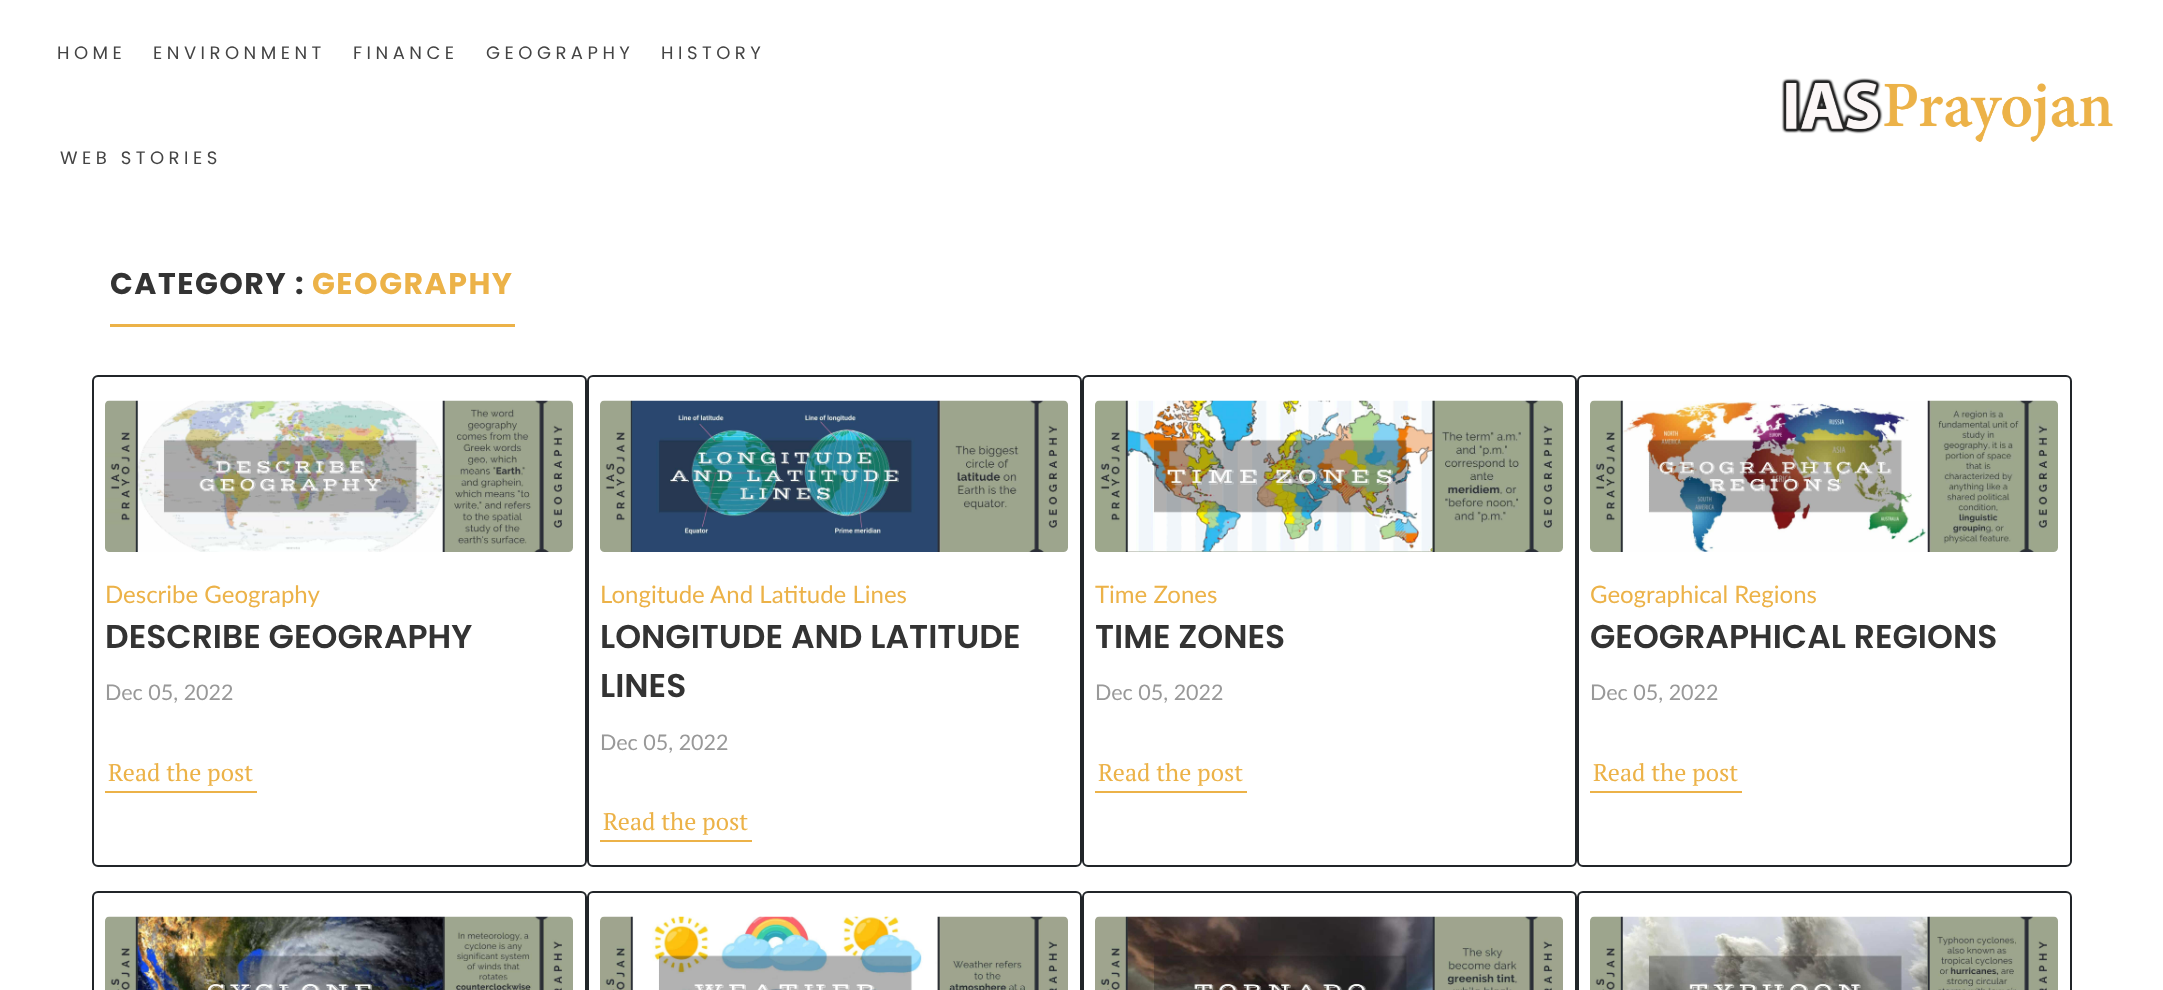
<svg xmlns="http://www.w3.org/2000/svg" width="2163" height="990">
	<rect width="100%" height="100%" fill="#FFFFFF" />
	<g font-family="Poppins" font-size="18" letter-spacing="4.5" fill="#444444">
		<text x="57" y="59">HOME</text>
		<text x="153" y="59">ENVIRONMENT</text>
		<text x="353" y="59">FINANCE</text>
		<text x="486" y="59">GEOGRAPHY</text>
		<text x="661" y="59">HISTORY</text>
		<text x="60" y="164">WEB STORIES</text>
	</g>
	<image x="1781" y="78" width="332" height="64" href="assets/img1.png" />
	<rect x="110" y="324" width="405" height="3" fill="#ECB248" />
	<text x="110" y="294" font-family="Poppins" font-size="30" font-weight="700" letter-spacing="1.5" fill="#333333">CATEGORY :</text>
	<text x="312" y="294" font-family="Poppins" font-size="30" font-weight="700" letter-spacing="1.5" fill="#ECB248">GEOGRAPHY</text>
	<rect x="93" y="376" width="493" height="490" rx="5" fill="none" stroke="#212529" stroke-width="2" />
	<image x="105" y="400" width="468" height="152" href="assets/img2.png" />
	<text x="105" y="603" font-family="Lato" font-size="24" fill="#ECB248">Describe Geography</text>
	<text x="105" y="648" font-family="Poppins" font-size="33" font-weight="600" fill="#333333">DESCRIBE GEOGRAPHY</text>
	<text x="105" y="700" font-family="Lato" font-size="21.5" fill="#999999">Dec 05, 2022</text>
	<rect x="105" y="791" width="152" height="2" fill="#ECB248" />
	<text x="108" y="781" font-family="PT Serif" font-size="24" fill="#ECB248">Read the post</text>
	<rect x="588" y="376" width="493" height="490" rx="5" fill="none" stroke="#212529" stroke-width="2" />
	<image x="600" y="400" width="468" height="152" href="assets/img3.png" />
	<text x="600" y="603" font-family="Lato" font-size="24" fill="#ECB248">Longitude And Latitude Lines</text>
	<g font-family="Poppins" font-size="33" font-weight="600" fill="#333333">
		<text x="600" y="648">LONGITUDE AND LATITUDE</text>
		<text x="600" y="697">LINES</text>
	</g>
	<text x="600" y="750" font-family="Lato" font-size="21.5" fill="#999999">Dec 05, 2022</text>
	<rect x="600" y="840" width="152" height="2" fill="#ECB248" />
	<text x="603" y="830" font-family="PT Serif" font-size="24" fill="#ECB248">Read the post</text>
	<rect x="1083" y="376" width="493" height="490" rx="5" fill="none" stroke="#212529" stroke-width="2" />
	<image x="1095" y="400" width="468" height="152" href="assets/img4.png" />
	<text x="1095" y="603" font-family="Lato" font-size="24" fill="#ECB248">Time Zones</text>
	<text x="1095" y="648" font-family="Poppins" font-size="33" font-weight="600" fill="#333333">TIME ZONES</text>
	<text x="1095" y="700" font-family="Lato" font-size="21.5" fill="#999999">Dec 05, 2022</text>
	<rect x="1095" y="791" width="152" height="2" fill="#ECB248" />
	<text x="1098" y="781" font-family="PT Serif" font-size="24" fill="#ECB248">Read the post</text>
	<rect x="1578" y="376" width="493" height="490" rx="5" fill="none" stroke="#212529" stroke-width="2" />
	<image x="1590" y="400" width="468" height="152" href="assets/img5.png" />
	<text x="1590" y="603" font-family="Lato" font-size="24" fill="#ECB248">Geographical Regions</text>
	<text x="1590" y="648" font-family="Poppins" font-size="33" font-weight="600" fill="#333333">GEOGRAPHICAL REGIONS</text>
	<text x="1590" y="700" font-family="Lato" font-size="21.5" fill="#999999">Dec 05, 2022</text>
	<rect x="1590" y="791" width="152" height="2" fill="#ECB248" />
	<text x="1593" y="781" font-family="PT Serif" font-size="24" fill="#ECB248">Read the post</text>
	<rect x="93" y="892" width="493" height="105" rx="5" fill="none" stroke="#212529" stroke-width="2" />
	<image x="105" y="916" width="468" height="74" href="assets/img6.png" />
	<rect x="588" y="892" width="493" height="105" rx="5" fill="none" stroke="#212529" stroke-width="2" />
	<image x="600" y="916" width="468" height="74" href="assets/img7.png" />
	<rect x="1083" y="892" width="493" height="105" rx="5" fill="none" stroke="#212529" stroke-width="2" />
	<image x="1095" y="916" width="468" height="74" href="assets/img8.png" />
	<rect x="1578" y="892" width="493" height="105" rx="5" fill="none" stroke="#212529" stroke-width="2" />
	<image x="1590" y="916" width="468" height="74" href="assets/img9.png" />
</svg>
